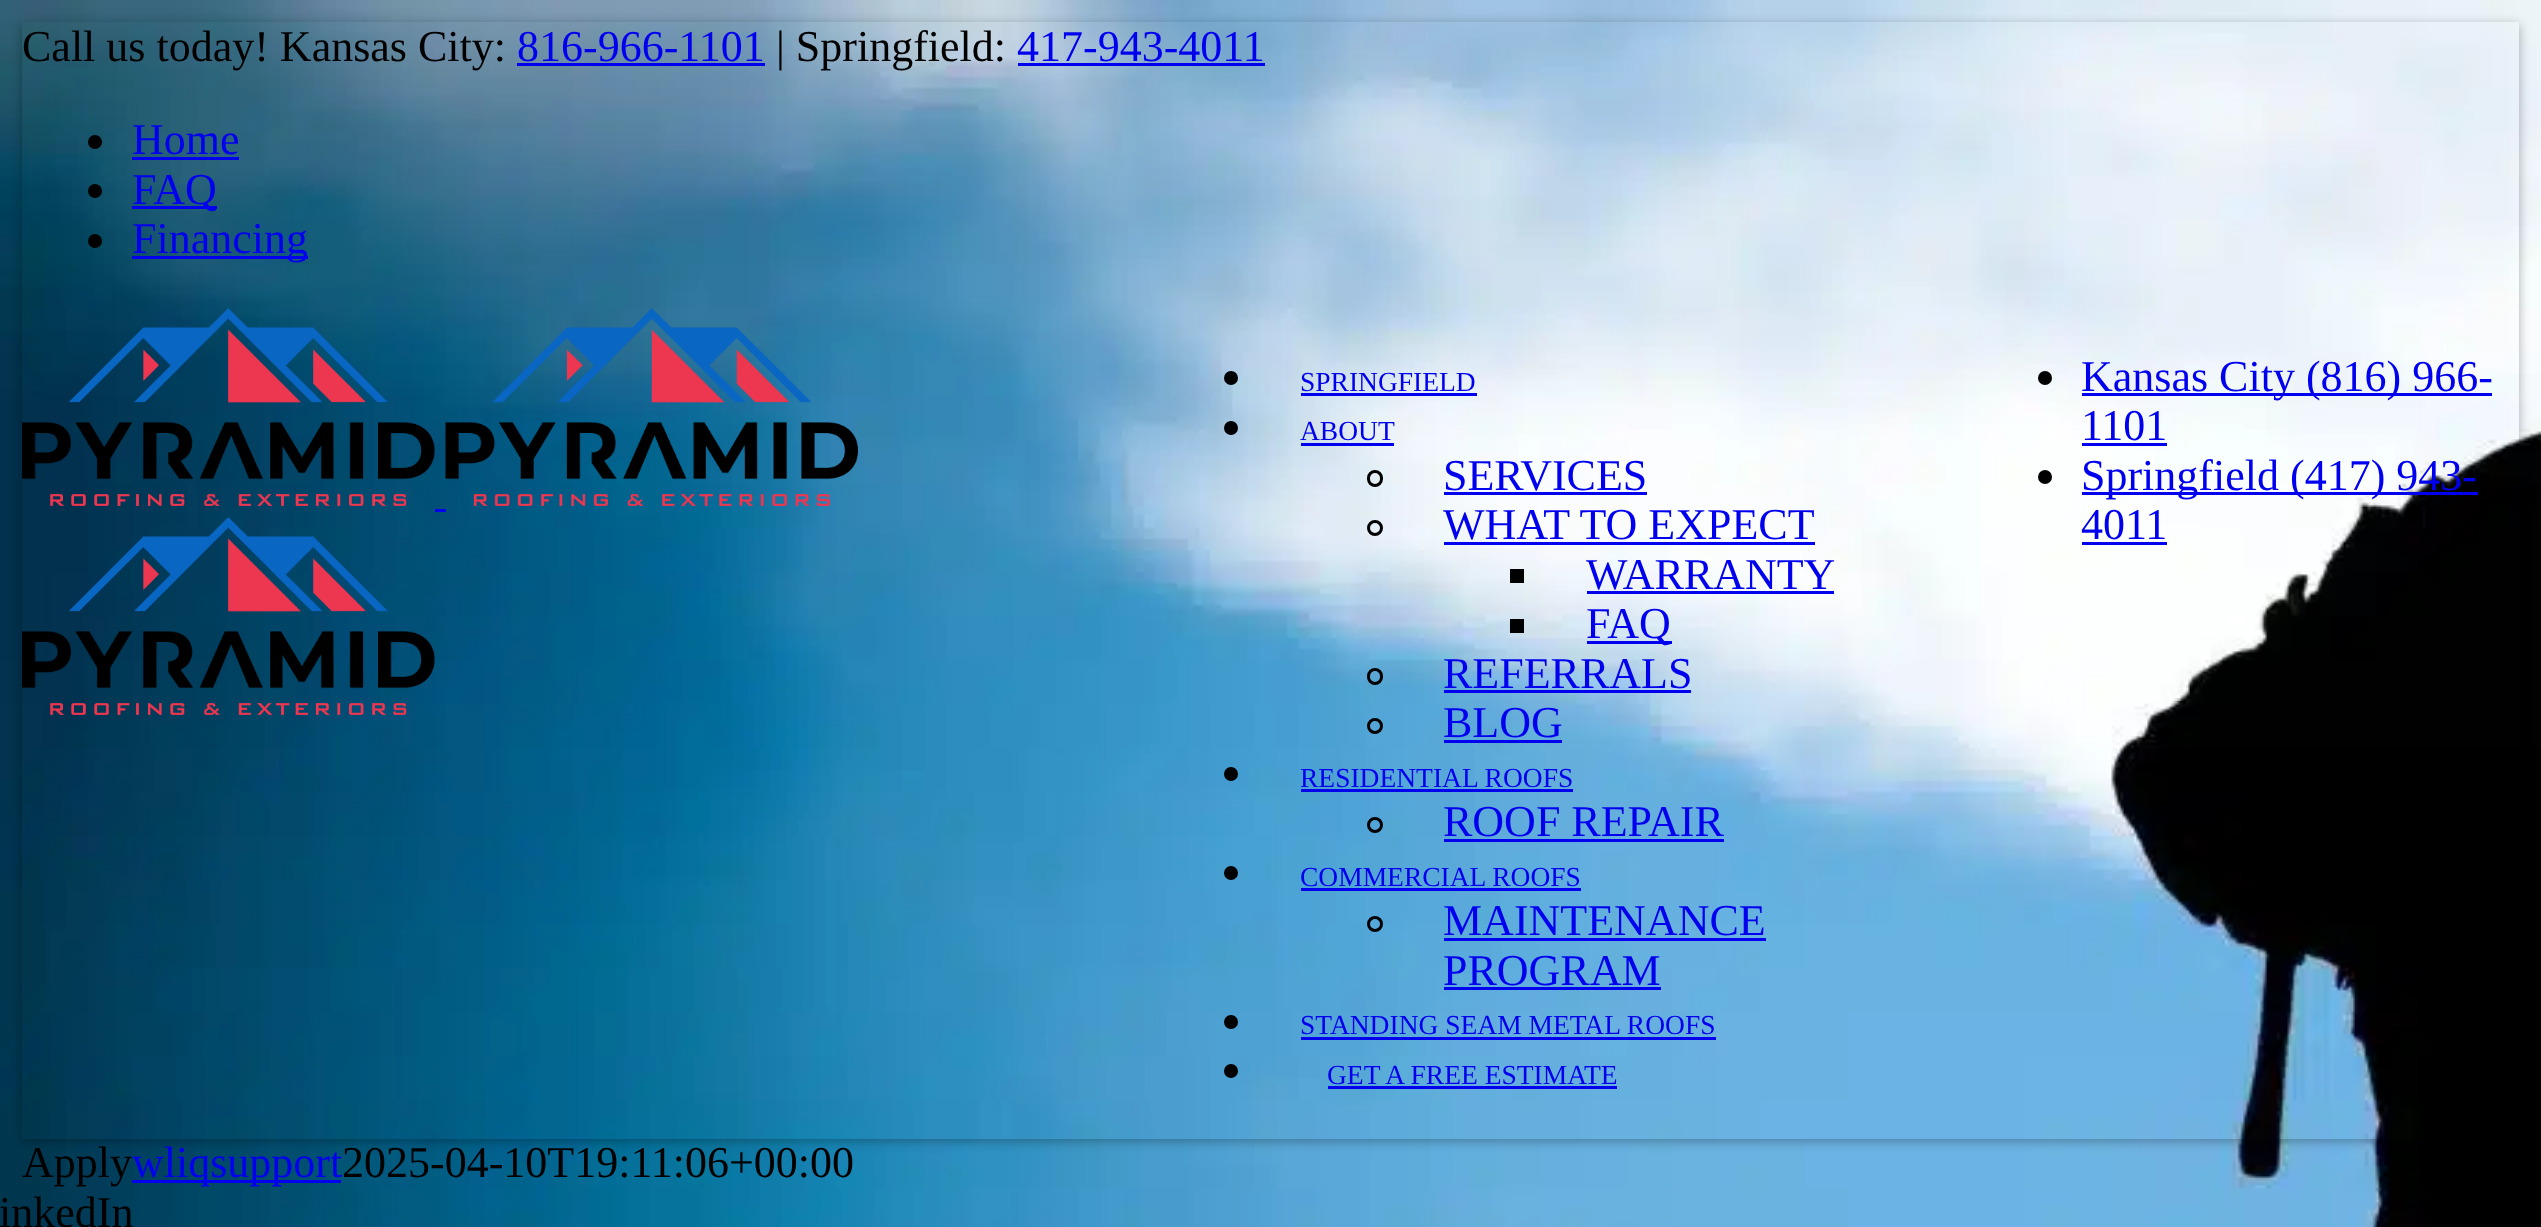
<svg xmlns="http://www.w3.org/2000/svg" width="2541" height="1227">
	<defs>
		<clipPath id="clip1"><path d="M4 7H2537V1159H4ZM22 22H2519V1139H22Z" clip-rule="evenodd" /></clipPath>
	</defs>
	<rect width="100%" height="100%" fill="#FFFFFF" />
	<image x="0" y="0" width="2541" height="1227" href="assets/img1.png" />
	<g clip-path="url(#clip1)">
		<rect x="22" y="25" width="2497" height="1116" fill="#000000" fill-opacity="0.31" filter="blur(5.5px)" />
	</g>
	<text x="22" y="61" font-family="Liberation Serif" font-size="44" fill="#000000">Call us today! Kansas City:</text>
	<text x="517" y="61" font-family="Liberation Serif" font-size="44" fill="#0000EE">816-966-1101</text>
	<rect x="517" y="63" width="248" height="3" fill="#0000EE" />
	<text x="776" y="61" font-family="Liberation Serif" font-size="44" fill="#000000">| Springfield:</text>
	<text x="1017" y="61" font-family="Liberation Serif" font-size="44" fill="#0000EE">417-943-4011</text>
	<rect x="1018" y="63" width="247" height="3" fill="#0000EE" />
	<circle cx="95" cy="142" r="7" fill="#000000" />
	<text x="132" y="154" font-family="Liberation Serif" font-size="44" fill="#0000EE">Home</text>
	<rect x="132" y="157" width="107" height="3" fill="#0000EE" />
	<circle cx="95" cy="191" r="7" fill="#000000" />
	<rect x="132" y="206" width="85" height="3" fill="#0000EE" />
	<text x="132" y="204" font-family="Liberation Serif" font-size="44" fill="#0000EE">FAQ</text>
	<circle cx="95" cy="241" r="7" fill="#000000" />
	<rect x="132" y="256" width="176" height="3" fill="#0000EE" />
	<text x="132" y="253" font-family="Liberation Serif" font-size="44" fill="#0000EE">Financing</text>
	<image x="22" y="308" width="413" height="198" href="assets/img2.png" />
	<image x="445" y="308" width="413" height="198" href="assets/img3.png" />
	<rect x="435" y="509" width="11" height="3" fill="#0000EE" />
	<image x="22" y="517" width="413" height="198" href="assets/img4.png" />
	<circle cx="1231" cy="378" r="7" fill="#000000" />
	<text x="1300" y="391" font-family="Liberation Serif" font-size="27.5" fill="#0000EE">SPRINGFIELD</text>
	<rect x="1301" y="393" width="176" height="3" fill="#0000EE" />
	<circle cx="1231" cy="428" r="7" fill="#000000" />
	<text x="1300" y="440" font-family="Liberation Serif" font-size="27.5" fill="#0000EE">ABOUT</text>
	<rect x="1301" y="443" width="93" height="3" fill="#0000EE" />
	<rect x="1368.5" y="471.5" width="13" height="14" rx="6.5" fill="none" stroke="#000000" stroke-width="3" />
	<text x="1443" y="490" font-family="Liberation Serif" font-size="44" fill="#0000EE">SERVICES</text>
	<rect x="1444" y="492" width="203" height="3" fill="#0000EE" />
	<circle cx="1375" cy="528" r="6.5" fill="none" stroke="#000000" stroke-width="3" />
	<text x="1443" y="539" font-family="Liberation Serif" font-size="44" fill="#0000EE">WHAT TO EXPECT</text>
	<rect x="1444" y="542" width="371" height="3" fill="#0000EE" />
	<rect x="1510" y="569" width="14" height="14" fill="#000000" />
	<text x="1586" y="589" font-family="Liberation Serif" font-size="44" fill="#0000EE">WARRANTY</text>
	<rect x="1587" y="591" width="247" height="3" fill="#0000EE" />
	<rect x="1510" y="619" width="14" height="14" fill="#000000" />
	<rect x="1587" y="641" width="85" height="3" fill="#0000EE" />
	<text x="1586" y="638" font-family="Liberation Serif" font-size="44" fill="#0000EE">FAQ</text>
	<rect x="1368.5" y="669.5" width="13" height="14" rx="6.5" fill="none" stroke="#000000" stroke-width="3" />
	<text x="1443" y="688" font-family="Liberation Serif" font-size="44" fill="#0000EE">REFERRALS</text>
	<rect x="1444" y="690" width="247" height="3" fill="#0000EE" />
	<circle cx="1375" cy="726" r="6.5" fill="none" stroke="#000000" stroke-width="3" />
	<text x="1443" y="737" font-family="Liberation Serif" font-size="44" fill="#0000EE">BLOG</text>
	<rect x="1444" y="740" width="118" height="3" fill="#0000EE" />
	<circle cx="1231" cy="774" r="7" fill="#000000" />
	<text x="1300" y="787" font-family="Liberation Serif" font-size="27.5" fill="#0000EE">RESIDENTIAL ROOFS</text>
	<rect x="1301" y="789" width="272" height="3" fill="#0000EE" />
	<circle cx="1375" cy="825" r="6.5" fill="none" stroke="#000000" stroke-width="3" />
	<text x="1443" y="836" font-family="Liberation Serif" font-size="44" fill="#0000EE">ROOF REPAIR</text>
	<rect x="1444" y="839" width="280" height="3" fill="#0000EE" />
	<circle cx="1231" cy="873" r="7" fill="#000000" />
	<text x="1300" y="886" font-family="Liberation Serif" font-size="27.5" fill="#0000EE">COMMERCIAL ROOFS</text>
	<rect x="1301" y="888" width="280" height="3" fill="#0000EE" />
	<circle cx="1375" cy="924" r="6.5" fill="none" stroke="#000000" stroke-width="3" />
	<text x="1443" y="935" font-family="Liberation Serif" font-size="44" fill="#0000EE">MAINTENANCE</text>
	<rect x="1444" y="938" width="322" height="3" fill="#0000EE" />
	<text x="1443" y="985" font-family="Liberation Serif" font-size="44" fill="#0000EE">PROGRAM</text>
	<rect x="1444" y="987" width="217" height="3" fill="#0000EE" />
	<circle cx="1231" cy="1022" r="7" fill="#000000" />
	<text x="1300" y="1034" font-family="Liberation Serif" font-size="27.5" fill="#0000EE">STANDING SEAM METAL ROOFS</text>
	<rect x="1301" y="1037" width="415" height="3" fill="#0000EE" />
	<circle cx="1231" cy="1071" r="7" fill="#000000" />
	<text x="1327" y="1084" font-family="Liberation Serif" font-size="27.5" fill="#0000EE">GET A FREE ESTIMATE</text>
	<rect x="1328" y="1086" width="289" height="3" fill="#0000EE" />
	<circle cx="2045" cy="378" r="7" fill="#000000" />
	<rect x="2082" y="393" width="410" height="3" fill="#0000EE" />
	<g font-family="Liberation Serif" font-size="44" fill="#0000EE">
		<text x="2081" y="391">Kansas City (816) 966-</text>
		<text x="2081" y="440">1101</text>
	</g>
	<rect x="2082" y="443" width="85" height="3" fill="#0000EE" />
	<circle cx="2045" cy="477" r="7" fill="#000000" />
	<rect x="2082" y="492" width="396" height="3" fill="#0000EE" />
	<g font-family="Liberation Serif" font-size="44" fill="#0000EE">
		<text x="2081" y="490">Springfield (417) 943-</text>
		<text x="2081" y="539">4011</text>
	</g>
	<rect x="2082" y="542" width="85" height="3" fill="#0000EE" />
	<text x="22" y="1177" font-family="Liberation Serif" font-size="44" fill="#000000">Apply</text>
	<rect x="132" y="1180" width="209" height="3" fill="#0000EE" />
	<text x="132" y="1177" font-family="Liberation Serif" font-size="44" fill="#0000EE">wliqsupport</text>
	<g font-family="Liberation Serif" font-size="44" fill="#000000">
		<text x="342" y="1177">2025-04-10T19:11:06+00:00</text>
		<text x="-1" y="1227">inkedIn</text>
	</g>
</svg>
